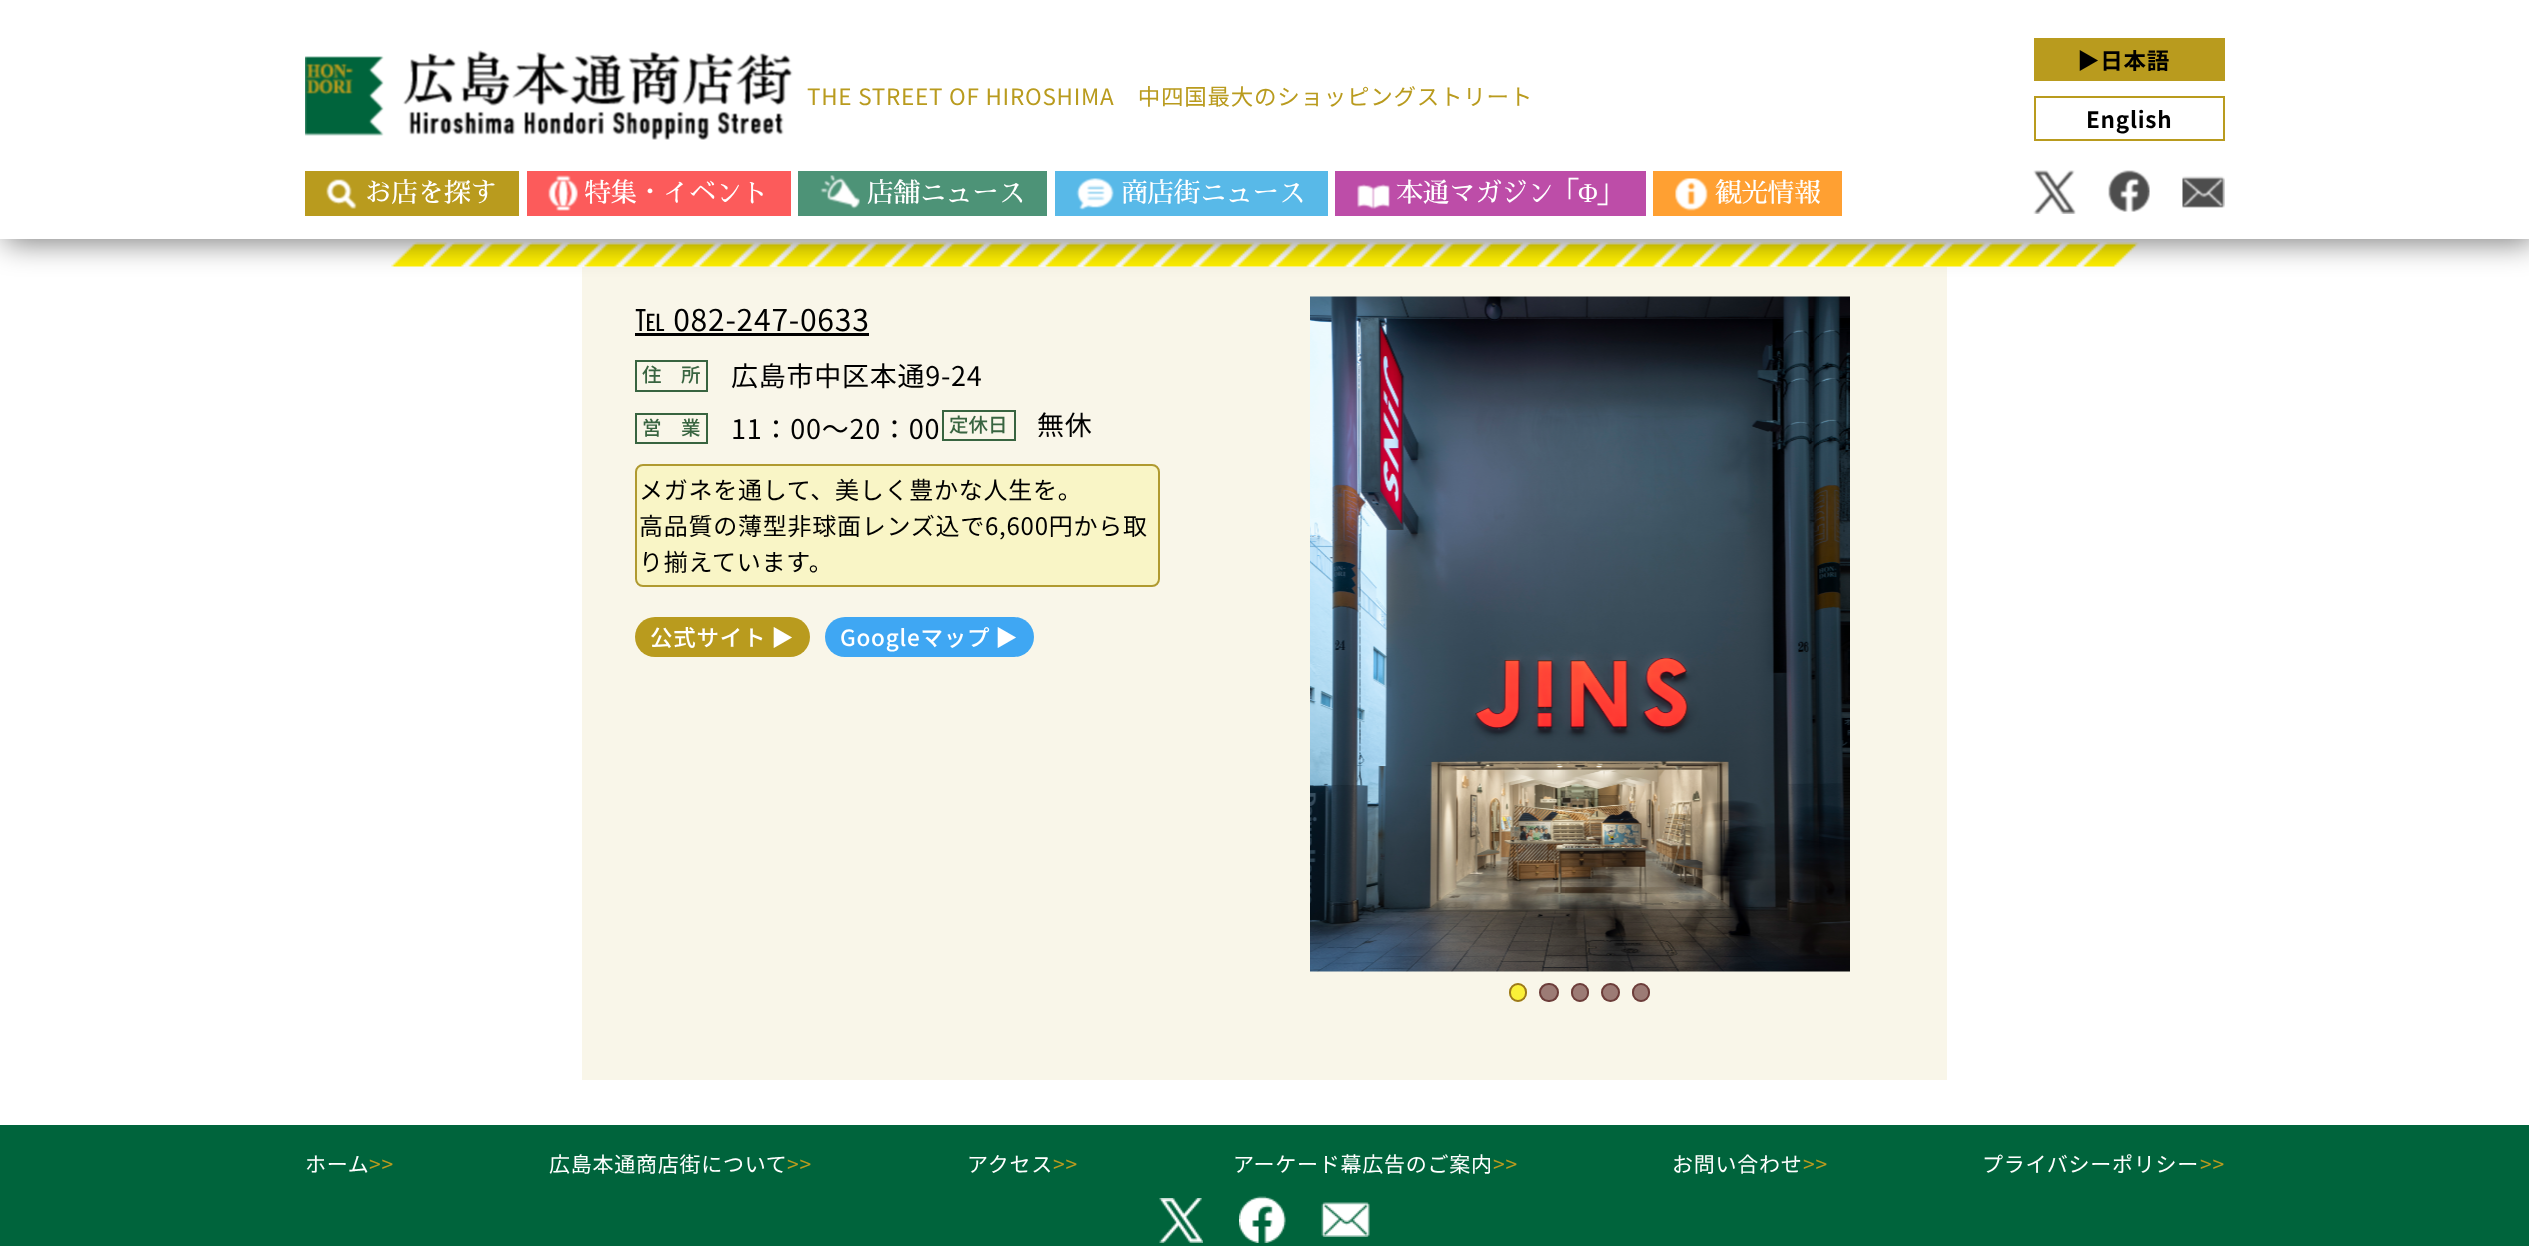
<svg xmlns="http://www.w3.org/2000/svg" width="2529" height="1246">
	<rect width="100%" height="100%" fill="#FFFFFF" />
	<image x="391" y="242" width="1748" height="25" href="assets/img11.png" />
	<rect x="582" y="267" width="1365" height="813" fill="#F9F6E9" />
	<rect x="5" y="5" width="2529" height="238" fill="#000000" fill-opacity="0.5" filter="blur(15px)" />
	<rect x="0" y="0" width="2529" height="239" fill="#FFFFFF" />
	<image x="305" y="50" width="488" height="90" href="assets/img1.png" />
	<text x="807" y="105" font-family="Noto Sans JP" font-size="22.5" letter-spacing="0.75" fill="#B99B1E">THE STREET OF HIROSHIMA　中四国最大のショッピングストリート</text>
	<rect x="2034" y="38" width="191" height="43" fill="#B99B1E" />
	<text x="2077" y="69" font-family="Noto Sans JP" font-size="22.5" font-weight="700" letter-spacing="0.75" fill="#000000">▶日本語</text>
	<rect x="2035" y="97" width="189" height="43" fill="none" stroke="#B99B1E" stroke-width="2" />
	<text x="2086" y="128" font-family="Noto Sans JP" font-size="22.5" font-weight="700" letter-spacing="0.75" fill="#000000">English</text>
	<rect x="305" y="171" width="214" height="45" fill="#B99B1E" />
	<image x="326" y="179" width="31" height="30" href="assets/img2.png" />
	<text x="365" y="202" font-family="Sawarabi Mincho" font-size="27" letter-spacing="-0.75" fill="#FFFFFF">お店を探す</text>
	<rect x="527" y="171" width="264" height="45" fill="#FC5B5B" />
	<image x="548" y="175" width="30" height="36" href="assets/img3.png" />
	<text x="584" y="202" font-family="Sawarabi Mincho" font-size="27" letter-spacing="-0.75" fill="#FFFFFF">特集・イベント</text>
	<rect x="798" y="171" width="249" height="45" fill="#4D9377" />
	<image x="820" y="175" width="40" height="34" href="assets/img4.png" />
	<text x="867" y="202" font-family="Sawarabi Mincho" font-size="27" letter-spacing="-0.75" fill="#FFFFFF">店舗ニュース</text>
	<rect x="1055" y="171" width="273" height="45" fill="#58B9E8" />
	<image x="1076" y="178" width="38" height="32" href="assets/img5.png" />
	<text x="1121" y="202" font-family="Sawarabi Mincho" font-size="27" letter-spacing="-0.75" fill="#FFFFFF">商店街ニュース</text>
	<rect x="1335" y="171" width="311" height="45" fill="#BD4DA8" />
	<image x="1357" y="184" width="33" height="25" href="assets/img6.png" />
	<text x="1396" y="202" font-family="Sawarabi Mincho" font-size="27" letter-spacing="-0.75" fill="#FFFFFF">本通マガジ</text>
	<text x="1527" y="202" font-family="Sawarabi Mincho" font-size="27" letter-spacing="-2" fill="#FFFFFF">ン「</text>
	<text x="1578" y="202" font-family="Liberation Serif" font-size="27" letter-spacing="-0.75" fill="#FFFFFF">Φ</text>
	<text x="1597" y="202" font-family="Sawarabi Mincho" font-size="27" letter-spacing="-0.75" fill="#FFFFFF">」</text>
	<rect x="1653" y="171" width="189" height="45" fill="#FFA032" />
	<image x="1675" y="178" width="33" height="33" href="assets/img7.png" />
	<text x="1715" y="202" font-family="Sawarabi Mincho" font-size="27" letter-spacing="-0.75" fill="#FFFFFF">観光情報</text>
	<image x="2033" y="170" width="43" height="44" href="assets/img8.png" />
	<image x="2108" y="170" width="42" height="42" href="assets/img9.png" />
	<image x="2182" y="176" width="43" height="32" href="assets/img10.png" />
	<text x="635" y="331" font-family="Noto Sans JP" font-size="30" letter-spacing="0.75" fill="#000000">℡ 082-247-0633</text>
	<rect x="635" y="333" width="234" height="3" fill="#000000" />
	<rect x="636" y="361" width="71" height="30" fill="none" stroke="#386440" stroke-width="2" />
	<text x="642" y="382" font-family="Noto Sans JP" font-size="19.5" font-weight="500" fill="#386440">住　所</text>
	<text x="731" y="386" font-family="Noto Sans JP" font-size="27" letter-spacing="0.75" fill="#000000">広島市中区本通9-24</text>
	<rect x="636" y="414" width="71" height="29" fill="none" stroke="#386440" stroke-width="2" />
	<text x="642" y="435" font-family="Noto Sans JP" font-size="19.5" font-weight="500" fill="#386440">営　業</text>
	<text x="731" y="439" font-family="Noto Sans JP" font-size="27" letter-spacing="0.75" fill="#000000">11：00～20：00</text>
	<rect x="943" y="411" width="72" height="29" fill="none" stroke="#386440" stroke-width="2" />
	<text x="949" y="432" font-family="Noto Sans JP" font-size="19.5" font-weight="500" fill="#386440">定休日</text>
	<text x="1037" y="435" font-family="Noto Sans JP" font-size="27" letter-spacing="0.75" fill="#000000">無休</text>
	<rect x="636" y="465" width="523" height="121" rx="7" fill="#F9F5C6" stroke="#B09A30" stroke-width="2" />
	<g font-family="Noto Sans JP" font-size="24" letter-spacing="0.75" fill="#000000">
		<text x="639" y="499">メガネを通して、美しく豊かな人生を。</text>
		<text x="639" y="535">高品質の薄型非球面レンズ込で6,600円から取</text>
		<text x="639" y="571">り揃えています。</text>
	</g>
	<rect x="635" y="617" width="175" height="40" rx="20" fill="#B99B1E" />
	<text x="650" y="646" word-spacing="-1" font-family="Noto Sans JP" font-size="22.5" font-weight="500" letter-spacing="0.75" fill="#FFFFFF">公式サイト ▶︎</text>
	<rect x="825" y="617" width="209" height="40" rx="20" fill="#3FA7F3" />
	<text x="840" y="646" word-spacing="-1" font-family="Noto Sans JP" font-size="22.5" font-weight="500" letter-spacing="0.75" fill="#FFFFFF">Googleマップ ▶︎</text>
	<image x="1310" y="296" width="540" height="676" href="assets/img12.png" />
	<rect x="1509" y="983" width="18" height="19" rx="9" fill="#FAF038" />
	<rect x="1510" y="984" width="16" height="17" rx="8" fill="none" stroke="#3E0000" stroke-opacity="0.5" stroke-width="2" />
	<rect x="1539" y="983" width="20" height="19" rx="9.5" fill="#9C7B75" />
	<rect x="1540" y="984" width="18" height="17" rx="8.5" fill="none" stroke="#3E0000" stroke-opacity="0.5" stroke-width="2" />
	<rect x="1571" y="983" width="18" height="19" rx="9" fill="#9C7B75" />
	<rect x="1572" y="984" width="16" height="17" rx="8" fill="none" stroke="#3E0000" stroke-opacity="0.5" stroke-width="2" />
	<circle cx="1610.5" cy="992.5" r="9.5" fill="#9C7B75" />
	<circle cx="1610.5" cy="992.5" r="8.5" fill="none" stroke="#3E0000" stroke-opacity="0.5" stroke-width="2" />
	<rect x="1632" y="983" width="18" height="19" rx="9" fill="#9C7B75" />
	<rect x="1633" y="984" width="16" height="17" rx="8" fill="none" stroke="#3E0000" stroke-opacity="0.5" stroke-width="2" />
	<rect x="0" y="1125" width="2529" height="121" fill="#00643C" />
	<text x="305" y="1172" font-family="Noto Sans JP" font-size="21" letter-spacing="0.75" fill="#FFFFFF">ホーム</text>
	<text x="369" y="1172" font-family="Noto Sans JP" font-size="21" letter-spacing="0.75" fill="#B99B1E">&gt;&gt;</text>
	<text x="549" y="1172" font-family="Noto Sans JP" font-size="21" letter-spacing="0.75" fill="#FFFFFF">広島本通商店街について</text>
	<text x="787" y="1172" font-family="Noto Sans JP" font-size="21" letter-spacing="0.75" fill="#B99B1E">&gt;&gt;</text>
	<text x="967" y="1172" font-family="Noto Sans JP" font-size="21" letter-spacing="0.75" fill="#FFFFFF">アクセス</text>
	<text x="1053" y="1172" font-family="Noto Sans JP" font-size="21" letter-spacing="0.75" fill="#B99B1E">&gt;&gt;</text>
	<text x="1233" y="1172" font-family="Noto Sans JP" font-size="21" letter-spacing="0.75" fill="#FFFFFF">アーケード幕広告のご案内</text>
	<text x="1493" y="1172" font-family="Noto Sans JP" font-size="21" letter-spacing="0.75" fill="#B99B1E">&gt;&gt;</text>
	<text x="1672" y="1172" font-family="Noto Sans JP" font-size="21" letter-spacing="0.75" fill="#FFFFFF">お問い合わせ</text>
	<text x="1803" y="1172" font-family="Noto Sans JP" font-size="21" letter-spacing="0.75" fill="#B99B1E">&gt;&gt;</text>
	<text x="1982" y="1172" font-family="Noto Sans JP" font-size="21" letter-spacing="0.75" fill="#FFFFFF">プライバシーポリシー</text>
	<text x="2200" y="1172" font-family="Noto Sans JP" font-size="21" letter-spacing="0.75" fill="#B99B1E">&gt;&gt;</text>
	<image x="1159" y="1198" width="44" height="45" href="assets/img13.png" />
	<image x="1239" y="1196" width="47" height="47" href="assets/img14.png" />
	<image x="1321" y="1202" width="49" height="35" href="assets/img15.png" />
</svg>
